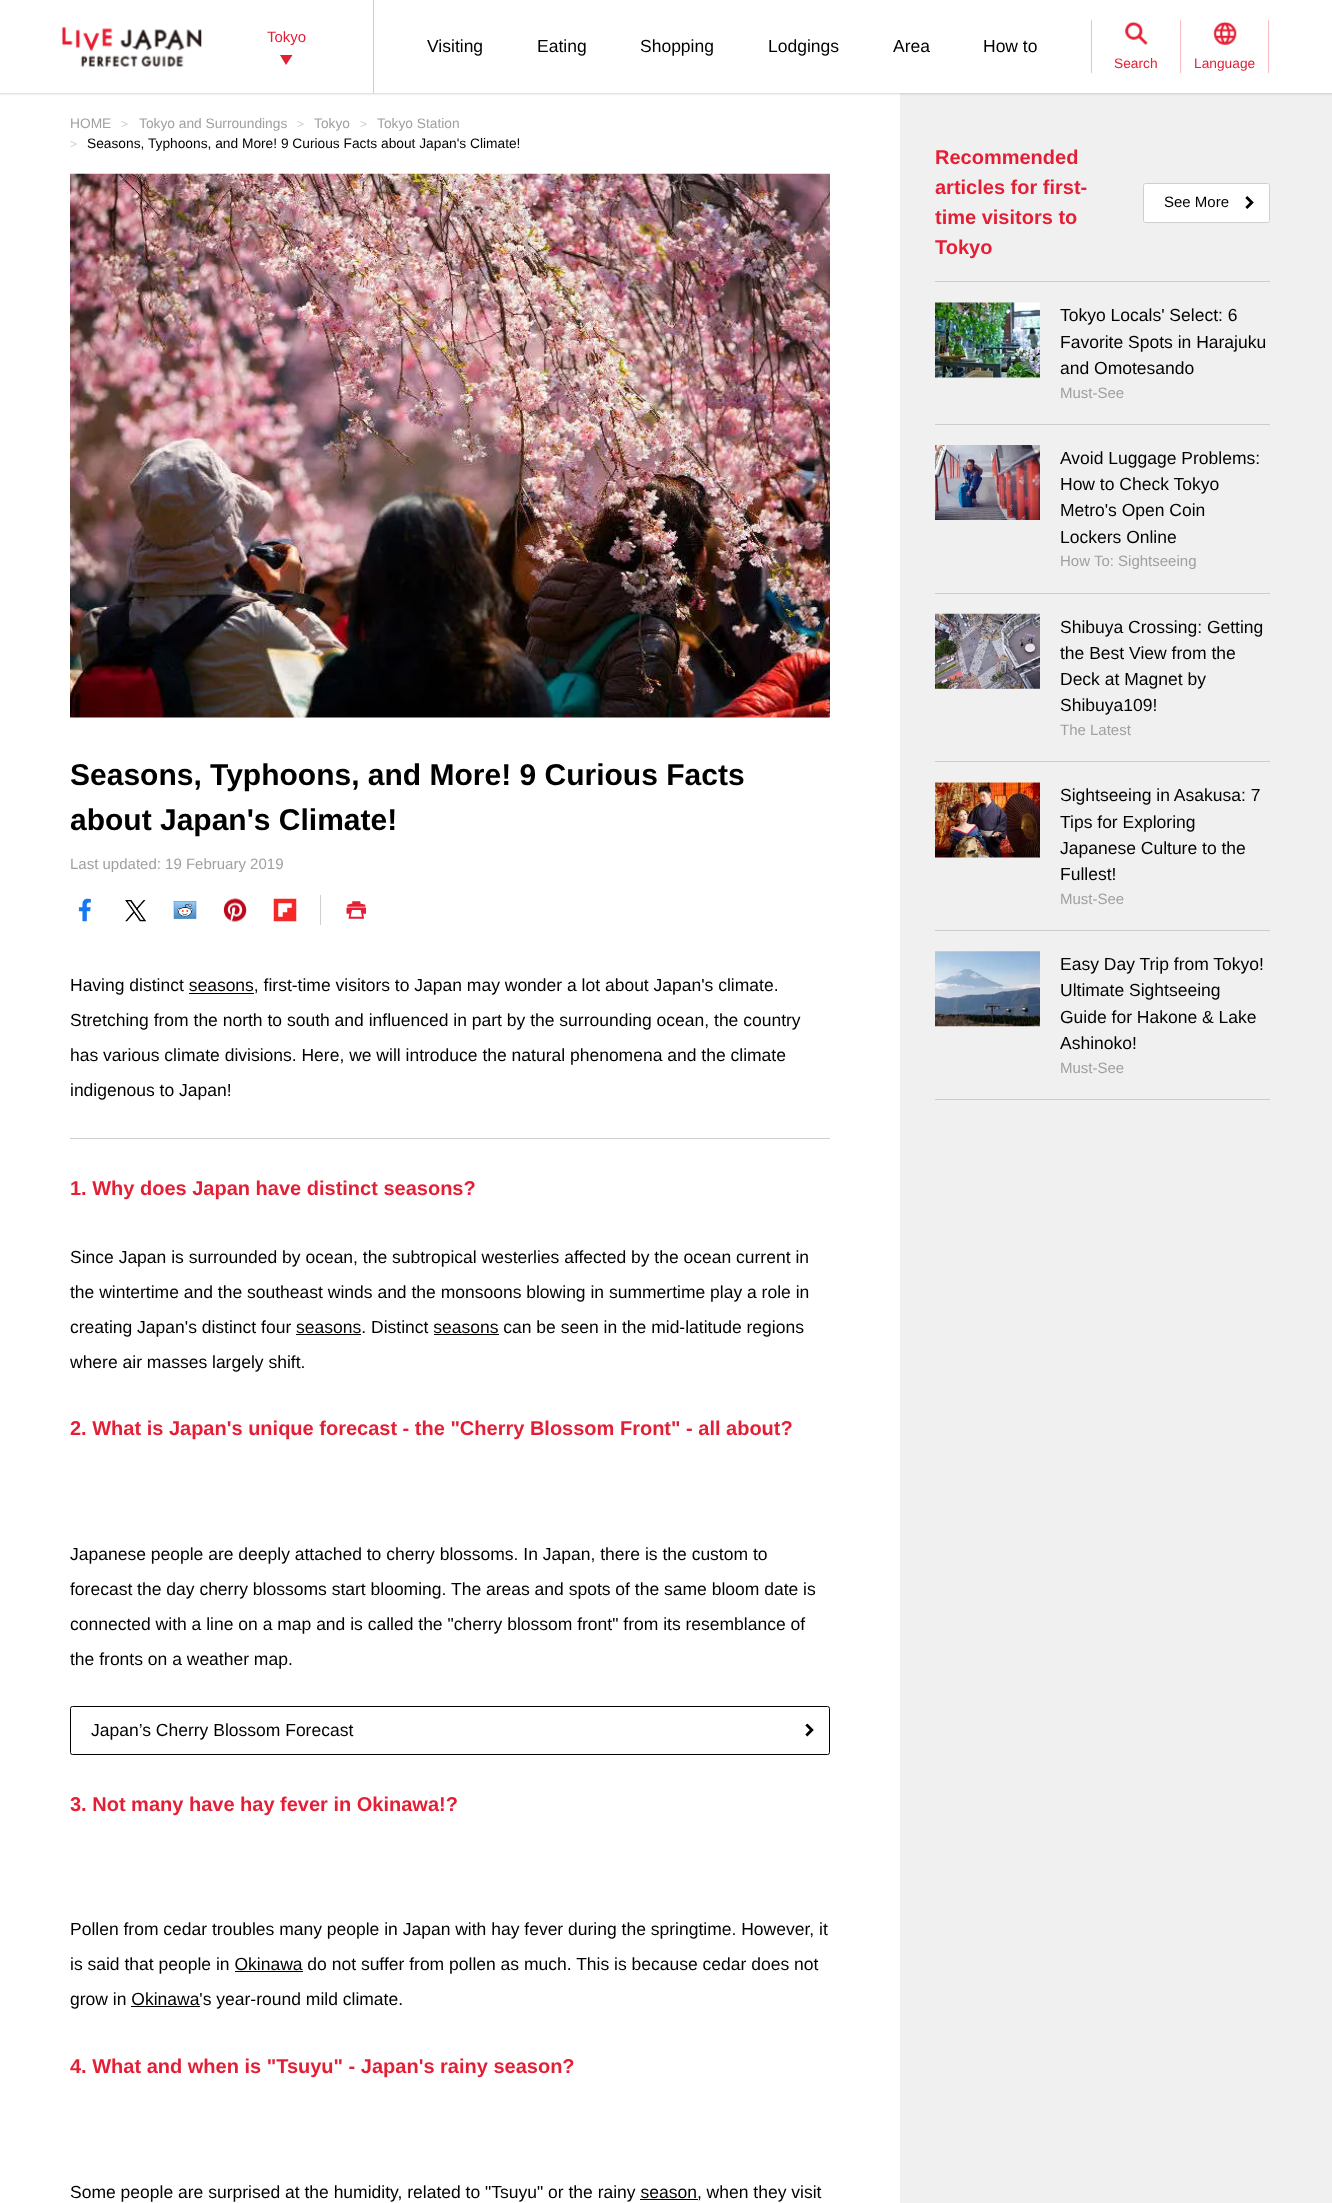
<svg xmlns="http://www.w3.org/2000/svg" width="1332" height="2203">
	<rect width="100%" height="100%" fill="#FFFFFF" />
	<rect x="900" y="93" width="432" height="2110" fill="#F0F0F0" />
	<rect x="-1" y="-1" width="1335" height="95" fill="#323232" fill-opacity="0.2" filter="blur(1px)" />
	<rect x="0" y="0" width="1332" height="93" fill="#FFFFFF" />
	<image x="62" y="27" width="140" height="40" href="assets/img1.png" />
	<text x="267" y="42" font-family="Liberation Sans" font-size="15" fill="#E41F35">Tokyo</text>
	<path d="M280 55H292.5L286 65Z" fill="#E41F35" />
	<rect x="373" y="0" width="1" height="93" fill="#F7BBC2" />
	<g font-family="Liberation Sans" font-size="17.5" fill="#000000">
		<text x="427" y="52">Visiting</text>
		<text x="537" y="52">Eating</text>
		<text x="640" y="52">Shopping</text>
		<text x="768" y="52">Lodgings</text>
		<text x="893" y="52">Area</text>
		<text x="983" y="52">How to</text>
	</g>
	<rect x="1091" y="20" width="1" height="53" fill="#F7BBC2" />
	<image x="1125" y="21" width="23" height="24" href="assets/img2.png" />
	<text x="1114" y="68" font-family="Liberation Sans" font-size="13.75" fill="#E41F35">Search</text>
	<rect x="1268" y="20" width="1" height="53" fill="#F7BBC2" />
	<rect x="1180" y="20" width="1" height="53" fill="#F7BBC2" />
	<image x="1213" y="21" width="24" height="24" href="assets/img3.png" />
	<text x="1194" y="68" font-family="Liberation Sans" font-size="13.75" fill="#E41F35">Language</text>
	<text x="70" y="128" font-family="Liberation Sans" font-size="13.75" fill="#A0A0A0">HOME</text>
	<text x="121" y="128" font-family="Liberation Sans" font-size="12" fill="#CCCCCC">&gt;</text>
	<text x="139" y="128" font-family="Liberation Sans" font-size="13.75" fill="#A0A0A0">Tokyo and Surroundings</text>
	<text x="297" y="128" font-family="Liberation Sans" font-size="12" fill="#CCCCCC">&gt;</text>
	<text x="314" y="128" font-family="Liberation Sans" font-size="13.75" fill="#A0A0A0">Tokyo</text>
	<text x="360" y="128" font-family="Liberation Sans" font-size="12" fill="#CCCCCC">&gt;</text>
	<text x="377" y="128" font-family="Liberation Sans" font-size="13.75" fill="#A0A0A0">Tokyo Station</text>
	<text x="70" y="148" font-family="Liberation Sans" font-size="12" fill="#CCCCCC">&gt;</text>
	<text x="87" y="148" font-family="Liberation Sans" font-size="13.75" fill="#000000">Seasons, Typhoons, and More! 9 Curious Facts about Japan's Climate!</text>
	<image x="70" y="173" width="760" height="545" href="assets/img4.png" />
	<g font-family="Liberation Sans" font-size="30" font-weight="700" fill="#000000">
		<text x="70" y="785">Seasons, Typhoons, and More! 9 Curious Facts</text>
		<text x="70" y="830">about Japan's Climate!</text>
	</g>
	<text x="70" y="869" font-family="Liberation Sans" font-size="15" fill="#A0A0A0">Last updated: 19 February 2019</text>
	<rect x="320" y="895" width="1" height="30" fill="#CFCFCF" />
	<image x="78" y="898" width="13" height="24" href="assets/img5.png" />
	<image x="125" y="900" width="22" height="22" href="assets/img6.png" />
	<image x="173" y="901" width="24" height="18" href="assets/img7.png" />
	<image x="223" y="898" width="24" height="24" href="assets/img8.png" />
	<image x="273" y="898" width="24" height="24" href="assets/img9.png" />
	<image x="346" y="901" width="20" height="18" href="assets/img10.png" />
	<text x="70" y="991" font-family="Liberation Sans" font-size="17.5" fill="#000000">Having distinct seasons, first-time visitors to Japan may wonder a lot about Japan's climate.</text>
	<rect x="189" y="993" width="65" height="1" fill="#000000" />
	<g font-family="Liberation Sans" font-size="17.5" fill="#000000">
		<text x="70" y="1026">Stretching from the north to south and influenced in part by the surrounding ocean, the country</text>
		<text x="70" y="1061">has various climate divisions. Here, we will introduce the natural phenomena and the climate</text>
		<text x="70" y="1096">indigenous to Japan!</text>
	</g>
	<rect x="70" y="1138" width="760" height="1" fill="#CFCFCF" />
	<text x="70" y="1195" font-family="Liberation Sans" font-size="20" font-weight="700" fill="#E41F35">1. Why does Japan have distinct seasons?</text>
	<g font-family="Liberation Sans" font-size="17.5" fill="#000000">
		<text x="70" y="1263">Since Japan is surrounded by ocean, the subtropical westerlies affected by the ocean current in</text>
		<text x="70" y="1298">the wintertime and the southeast winds and the monsoons blowing in summertime play a role in</text>
		<text x="70" y="1333">creating Japan's distinct four seasons. Distinct seasons can be seen in the mid-latitude regions</text>
	</g>
	<rect x="296" y="1334" width="65" height="1" fill="#000000" />
	<rect x="434" y="1334" width="65" height="1" fill="#000000" />
	<text x="70" y="1368" font-family="Liberation Sans" font-size="17.5" fill="#000000">where air masses largely shift.</text>
	<text x="70" y="1435" font-family="Liberation Sans" font-size="20" font-weight="700" fill="#E41F35">2. What is Japan's unique forecast - the "Cherry Blossom Front" - all about?</text>
	<g font-family="Liberation Sans" font-size="17.5" fill="#000000">
		<text x="70" y="1560">Japanese people are deeply attached to cherry blossoms. In Japan, there is the custom to</text>
		<text x="70" y="1595">forecast the day cherry blossoms start blooming. The areas and spots of the same bloom date is</text>
		<text x="70" y="1630">connected with a line on a map and is called the "cherry blossom front" from its resemblance of</text>
		<text x="70" y="1665">the fronts on a weather map.</text>
	</g>
	<rect x="70.5" y="1706.5" width="759" height="48" rx="2" fill="none" stroke="#000000" />
	<text x="91" y="1736" font-family="Liberation Sans" font-size="17.5" fill="#000000">Japan’s Cherry Blossom Forecast</text>
	<image x="805" y="1723" width="9" height="14" href="assets/img11.png" />
	<text x="70" y="1811" font-family="Liberation Sans" font-size="20" font-weight="700" fill="#E41F35">3. Not many have hay fever in Okinawa!?</text>
	<g font-family="Liberation Sans" font-size="17.5" fill="#000000">
		<text x="70" y="1935">Pollen from cedar troubles many people in Japan with hay fever during the springtime. However, it</text>
		<text x="70" y="1970">is said that people in Okinawa do not suffer from pollen as much. This is because cedar does not</text>
	</g>
	<rect x="235" y="1971" width="68" height="1" fill="#000000" />
	<text x="70" y="2005" font-family="Liberation Sans" font-size="17.5" fill="#000000">grow in Okinawa's year-round mild climate.</text>
	<rect x="131" y="2006" width="69" height="1" fill="#000000" />
	<text x="70" y="2073" font-family="Liberation Sans" font-size="20" font-weight="700" fill="#E41F35">4. What and when is "Tsuyu" - Japan's rainy season?</text>
	<text x="70" y="2198" font-family="Liberation Sans" font-size="17.5" fill="#000000">Some people are surprised at the humidity, related to "Tsuyu" or the rainy season, when they visit</text>
	<rect x="640" y="2199" width="58" height="1" fill="#000000" />
	<g font-family="Liberation Sans" font-size="20" font-weight="700" fill="#E41F35">
		<text x="935" y="164">Recommended</text>
		<text x="935" y="194">articles for first-</text>
		<text x="935" y="224">time visitors to</text>
		<text x="935" y="254">Tokyo</text>
	</g>
	<rect x="1143.5" y="183.5" width="126" height="39" rx="2" fill="#FFFFFF" stroke="#CFCFCF" />
	<text x="1164" y="207" font-family="Liberation Sans" font-size="15" fill="#000000">See More</text>
	<image x="1245" y="196" width="9" height="13" href="assets/img12.png" />
	<rect x="935" y="281" width="335" height="1" fill="#CCCCCC" />
	<rect x="935" y="424" width="335" height="1" fill="#CCCCCC" />
	<image x="935" y="302" width="105" height="76" href="assets/img13.png" />
	<g font-family="Liberation Sans" font-size="17.5" fill="#000000">
		<text x="1060" y="321">Tokyo Locals' Select: 6</text>
		<text x="1060" y="348">Favorite Spots in Harajuku</text>
		<text x="1060" y="374">and Omotesando</text>
	</g>
	<text x="1060" y="398" font-family="Liberation Sans" font-size="15" fill="#A0A0A0">Must-See</text>
	<rect x="935" y="593" width="335" height="1" fill="#CCCCCC" />
	<image x="935" y="445" width="105" height="75" href="assets/img14.png" />
	<g font-family="Liberation Sans" font-size="17.5" fill="#000000">
		<text x="1060" y="464">Avoid Luggage Problems:</text>
		<text x="1060" y="490">How to Check Tokyo</text>
		<text x="1060" y="516">Metro's Open Coin</text>
		<text x="1060" y="543">Lockers Online</text>
	</g>
	<text x="1060" y="566" font-family="Liberation Sans" font-size="15" fill="#A0A0A0">How To: Sightseeing</text>
	<rect x="935" y="761" width="335" height="1" fill="#CCCCCC" />
	<image x="935" y="613" width="105" height="76" href="assets/img15.png" />
	<g font-family="Liberation Sans" font-size="17.5" fill="#000000">
		<text x="1060" y="633">Shibuya Crossing: Getting</text>
		<text x="1060" y="659">the Best View from the</text>
		<text x="1060" y="685">Deck at Magnet by</text>
		<text x="1060" y="711">Shibuya109!</text>
	</g>
	<text x="1060" y="735" font-family="Liberation Sans" font-size="15" fill="#A0A0A0">The Latest</text>
	<rect x="935" y="930" width="335" height="1" fill="#CCCCCC" />
	<image x="935" y="782" width="105" height="76" href="assets/img16.png" />
	<g font-family="Liberation Sans" font-size="17.5" fill="#000000">
		<text x="1060" y="801">Sightseeing in Asakusa: 7</text>
		<text x="1060" y="828">Tips for Exploring</text>
		<text x="1060" y="854">Japanese Culture to the</text>
		<text x="1060" y="880">Fullest!</text>
	</g>
	<text x="1060" y="904" font-family="Liberation Sans" font-size="15" fill="#A0A0A0">Must-See</text>
	<rect x="935" y="1099" width="335" height="1" fill="#CCCCCC" />
	<image x="935" y="951" width="105" height="76" href="assets/img17.png" />
	<g font-family="Liberation Sans" font-size="17.5" fill="#000000">
		<text x="1060" y="970">Easy Day Trip from Tokyo!</text>
		<text x="1060" y="996">Ultimate Sightseeing</text>
		<text x="1060" y="1023">Guide for Hakone &amp; Lake</text>
		<text x="1060" y="1049">Ashinoko!</text>
	</g>
	<text x="1060" y="1073" font-family="Liberation Sans" font-size="15" fill="#A0A0A0">Must-See</text>
</svg>
